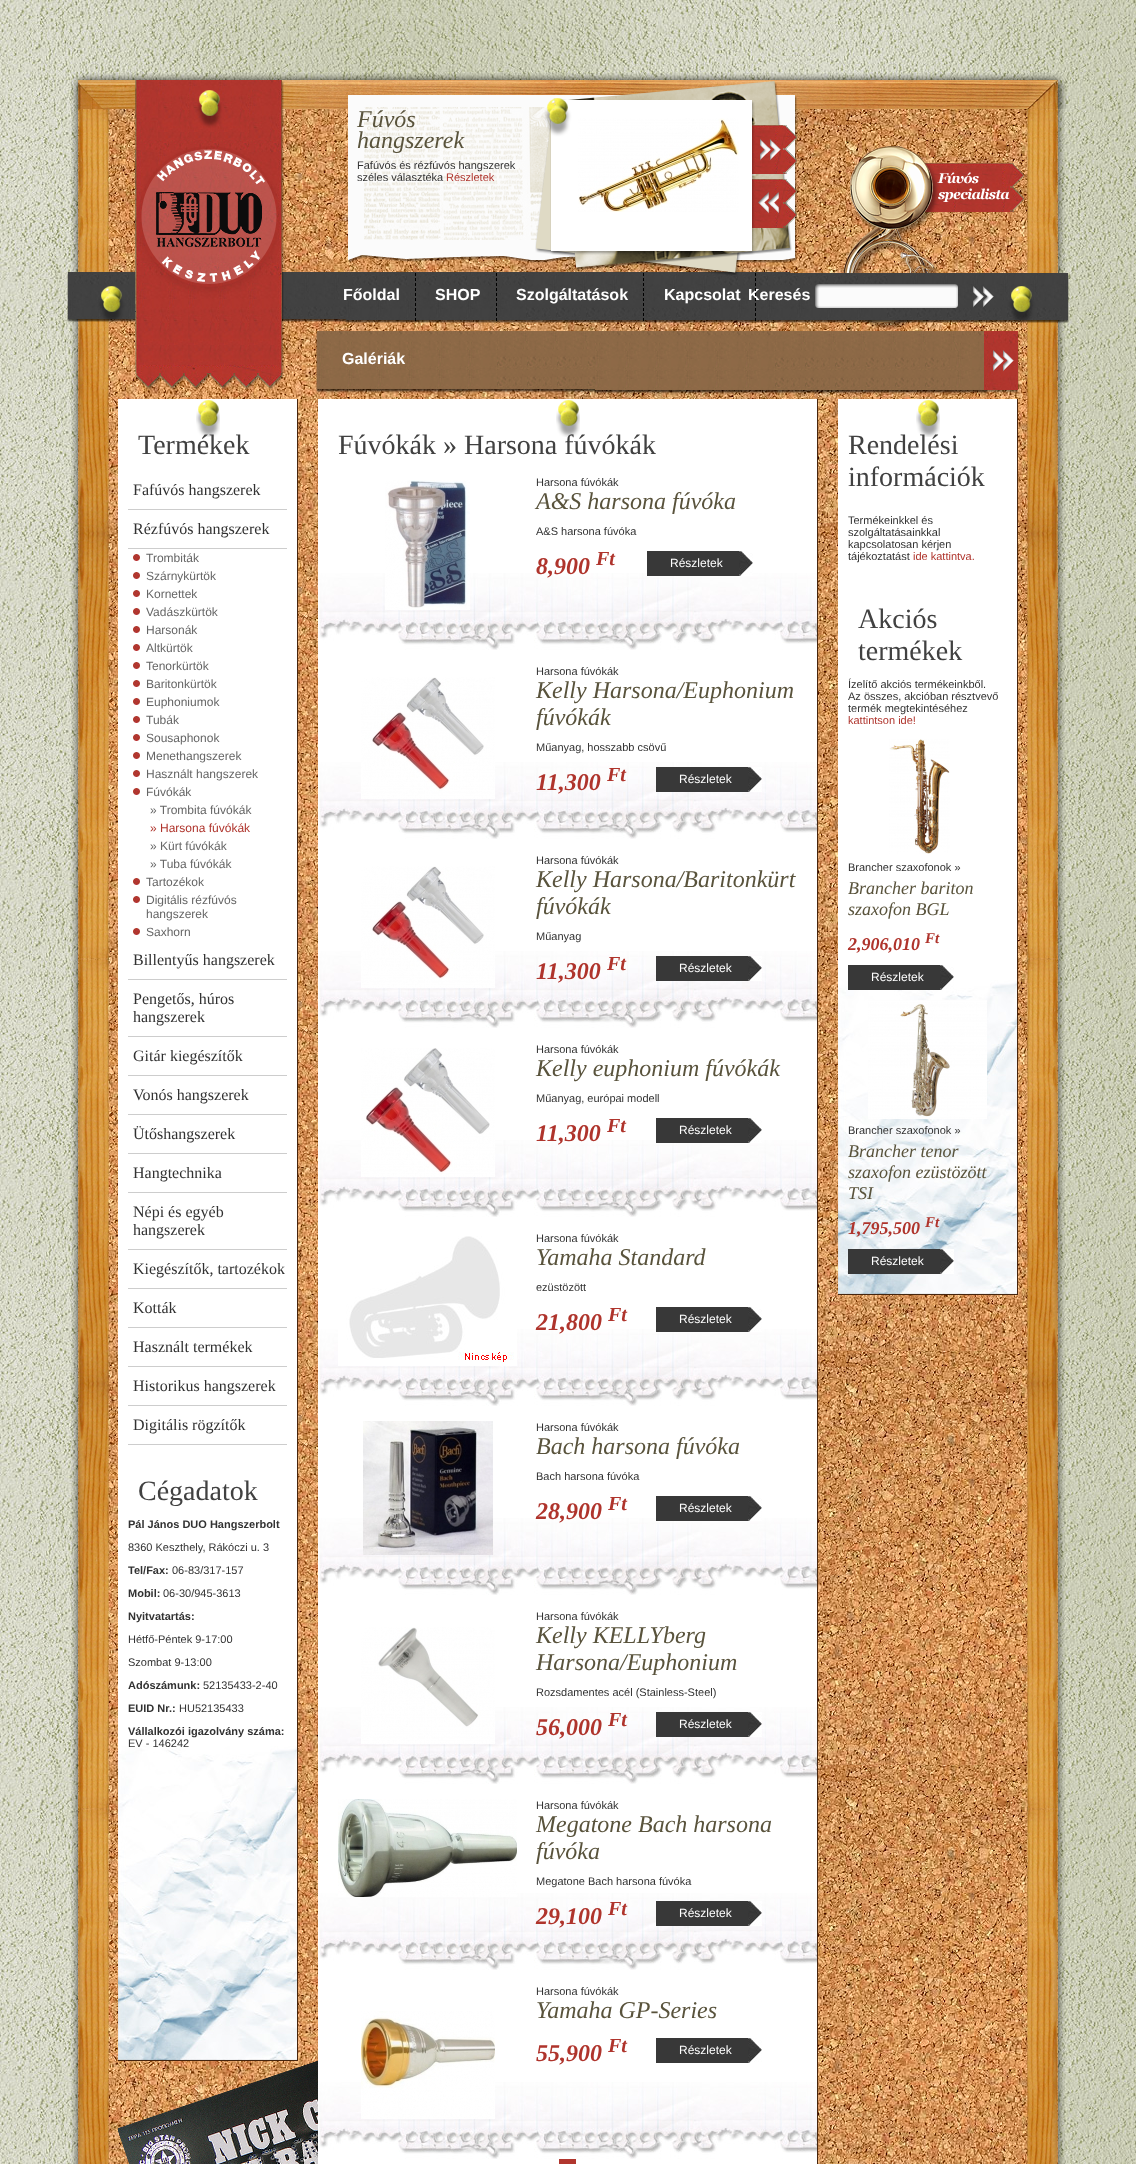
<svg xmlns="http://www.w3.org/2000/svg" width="1136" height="2164">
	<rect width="100%" height="100%" fill="#FFFFFF" />
	<image x="0" y="0" width="1136" height="2164" href="assets/img1.png" />
	<image x="71" y="73" width="996" height="36" href="assets/img2.png" />
	<image x="71" y="109" width="994" height="2055" href="assets/img3.png" />
	<image x="78" y="109" width="980" height="2055" href="assets/img4.png" />
	<image x="78" y="109" width="980" height="2055" href="assets/img5.png" />
	<image x="67" y="80" width="1002" height="315" href="assets/img6.png" />
	<g font-family="Liberation Serif" font-size="24" font-style="italic" fill="#59533C">
		<text x="357" y="127">Fúvós</text>
		<text x="357" y="148">hangszerek</text>
	</g>
	<g font-family="Liberation Sans" font-size="11" fill="#323232">
		<text x="357" y="169">Fafúvós és rézfúvós hangszerek</text>
		<text x="357" y="181">széles választéka</text>
	</g>
	<text x="446" y="181" font-family="Liberation Sans" font-size="11" fill="#AF342C">Részletek</text>
	<image x="578" y="118" width="161" height="94" href="assets/img7.png" />
	<path d="M415.5 273V321" fill="none" stroke="#000000" stroke-dasharray="3 2" />
	<text x="343" y="300" font-family="Liberation Sans" font-size="16" font-weight="700" fill="#FFFFFF">Főoldal</text>
	<path d="M496.5 273V321" fill="none" stroke="#000000" stroke-dasharray="3 2" />
	<text x="435" y="300" font-family="Liberation Sans" font-size="16" font-weight="700" fill="#FFFFFF">SHOP</text>
	<path d="M643.5 273V321" fill="none" stroke="#000000" stroke-dasharray="3 2" />
	<g font-family="Liberation Sans" font-size="16" font-weight="700" fill="#FFFFFF">
		<text x="516" y="300">Szolgáltatások</text>
		<text x="748" y="300">Keresés</text>
	</g>
	<path d="M755.5 273V321" fill="none" stroke="#000000" stroke-dasharray="3 2" />
	<g font-family="Liberation Sans" font-size="16" font-weight="700" fill="#FFFFFF">
		<text x="664" y="300">Kapcsolat</text>
		<text x="342" y="364">Galériák</text>
	</g>
	<rect x="118" y="399" width="179" height="1347" fill="#FFFFFF" />
	<image x="118" y="1746" width="179" height="314" href="assets/img8.png" />
	<image x="118" y="2060" width="200" height="104" href="assets/img23.png" />
	<rect x="297" y="399" width="1" height="1662" fill="#46250E" />
	<rect x="118" y="2060" width="180" height="1" fill="#46250E" />
	<image x="196" y="400" width="24" height="37" href="assets/img9.png" />
	<text x="138" y="454" font-family="Liberation Serif" font-size="28" fill="#414141">Termékek</text>
	<rect x="128" y="509" width="159" height="1" fill="#CDCDCD" />
	<text x="133" y="495" font-family="Liberation Serif" font-size="16" fill="#323232">Fafúvós hangszerek</text>
	<rect x="128" y="548" width="159" height="1" fill="#CDCDCD" />
	<text x="133" y="534" font-family="Liberation Serif" font-size="16" fill="#323232">Rézfúvós hangszerek</text>
	<image x="133" y="554" width="7" height="7" href="assets/img10.png" />
	<text x="146" y="562" font-family="Liberation Sans" font-size="12" fill="#666666">Trombiták</text>
	<image x="133" y="572" width="7" height="7" href="assets/img10.png" />
	<text x="146" y="580" font-family="Liberation Sans" font-size="12" fill="#666666">Szárnykürtök</text>
	<image x="133" y="590" width="7" height="7" href="assets/img10.png" />
	<text x="146" y="598" font-family="Liberation Sans" font-size="12" fill="#666666">Kornettek</text>
	<image x="133" y="608" width="7" height="7" href="assets/img10.png" />
	<text x="146" y="616" font-family="Liberation Sans" font-size="12" fill="#666666">Vadászkürtök</text>
	<image x="133" y="626" width="7" height="7" href="assets/img10.png" />
	<text x="146" y="634" font-family="Liberation Sans" font-size="12" fill="#666666">Harsonák</text>
	<image x="133" y="644" width="7" height="7" href="assets/img10.png" />
	<text x="146" y="652" font-family="Liberation Sans" font-size="12" fill="#666666">Altkürtök</text>
	<image x="133" y="662" width="7" height="7" href="assets/img10.png" />
	<text x="146" y="670" font-family="Liberation Sans" font-size="12" fill="#666666">Tenorkürtök</text>
	<image x="133" y="680" width="7" height="7" href="assets/img10.png" />
	<text x="146" y="688" font-family="Liberation Sans" font-size="12" fill="#666666">Baritonkürtök</text>
	<image x="133" y="698" width="7" height="7" href="assets/img10.png" />
	<text x="146" y="706" font-family="Liberation Sans" font-size="12" fill="#666666">Euphoniumok</text>
	<image x="133" y="716" width="7" height="7" href="assets/img10.png" />
	<text x="146" y="724" font-family="Liberation Sans" font-size="12" fill="#666666">Tubák</text>
	<image x="133" y="734" width="7" height="7" href="assets/img10.png" />
	<text x="146" y="742" font-family="Liberation Sans" font-size="12" fill="#666666">Sousaphonok</text>
	<image x="133" y="752" width="7" height="7" href="assets/img10.png" />
	<text x="146" y="760" font-family="Liberation Sans" font-size="12" fill="#666666">Menethangszerek</text>
	<image x="133" y="770" width="7" height="7" href="assets/img10.png" />
	<text x="146" y="778" font-family="Liberation Sans" font-size="12" fill="#666666">Használt hangszerek</text>
	<image x="133" y="788" width="7" height="7" href="assets/img10.png" />
	<g font-family="Liberation Sans" font-size="12" fill="#666666">
		<text x="146" y="796">Fúvókák</text>
		<text x="150" y="814">» Trombita fúvókák</text>
	</g>
	<text x="150" y="832" font-family="Liberation Sans" font-size="12" fill="#AF342C">» Harsona fúvókák</text>
	<g font-family="Liberation Sans" font-size="12" fill="#666666">
		<text x="150" y="850">» Kürt fúvókák</text>
		<text x="150" y="868">» Tuba fúvókák</text>
	</g>
	<image x="133" y="878" width="7" height="7" href="assets/img10.png" />
	<text x="146" y="886" font-family="Liberation Sans" font-size="12" fill="#666666">Tartozékok</text>
	<image x="133" y="896" width="7" height="7" href="assets/img10.png" />
	<g font-family="Liberation Sans" font-size="12" fill="#666666">
		<text x="146" y="904">Digitális rézfúvós</text>
		<text x="146" y="918">hangszerek</text>
	</g>
	<image x="133" y="928" width="7" height="7" href="assets/img10.png" />
	<text x="146" y="936" font-family="Liberation Sans" font-size="12" fill="#666666">Saxhorn</text>
	<rect x="128" y="979" width="159" height="1" fill="#CDCDCD" />
	<text x="133" y="965" font-family="Liberation Serif" font-size="16" fill="#323232">Billentyűs hangszerek</text>
	<rect x="128" y="1036" width="159" height="1" fill="#CDCDCD" />
	<g font-family="Liberation Serif" font-size="16" fill="#323232">
		<text x="133" y="1004">Pengetős, húros</text>
		<text x="133" y="1022">hangszerek</text>
	</g>
	<rect x="128" y="1075" width="159" height="1" fill="#CDCDCD" />
	<text x="133" y="1061" font-family="Liberation Serif" font-size="16" fill="#323232">Gitár kiegészítők</text>
	<rect x="128" y="1114" width="159" height="1" fill="#CDCDCD" />
	<text x="133" y="1100" font-family="Liberation Serif" font-size="16" fill="#323232">Vonós hangszerek</text>
	<rect x="128" y="1153" width="159" height="1" fill="#CDCDCD" />
	<text x="133" y="1139" font-family="Liberation Serif" font-size="16" fill="#323232">Ütőshangszerek</text>
	<rect x="128" y="1192" width="159" height="1" fill="#CDCDCD" />
	<text x="133" y="1178" font-family="Liberation Serif" font-size="16" fill="#323232">Hangtechnika</text>
	<rect x="128" y="1249" width="159" height="1" fill="#CDCDCD" />
	<g font-family="Liberation Serif" font-size="16" fill="#323232">
		<text x="133" y="1217">Népi és egyéb</text>
		<text x="133" y="1235">hangszerek</text>
	</g>
	<rect x="128" y="1288" width="159" height="1" fill="#CDCDCD" />
	<text x="133" y="1274" font-family="Liberation Serif" font-size="16" fill="#323232">Kiegészítők, tartozékok</text>
	<rect x="128" y="1327" width="159" height="1" fill="#CDCDCD" />
	<text x="133" y="1313" font-family="Liberation Serif" font-size="16" fill="#323232">Kották</text>
	<rect x="128" y="1366" width="159" height="1" fill="#CDCDCD" />
	<text x="133" y="1352" font-family="Liberation Serif" font-size="16" fill="#323232">Használt termékek</text>
	<rect x="128" y="1405" width="159" height="1" fill="#CDCDCD" />
	<text x="133" y="1391" font-family="Liberation Serif" font-size="16" fill="#323232">Historikus hangszerek</text>
	<rect x="128" y="1444" width="159" height="1" fill="#CDCDCD" />
	<text x="133" y="1430" font-family="Liberation Serif" font-size="16" fill="#323232">Digitális rögzítők</text>
	<text x="138" y="1500" font-family="Liberation Serif" font-size="28" fill="#414141">Cégadatok</text>
	<text x="128" y="1528" font-family="Liberation Sans" font-size="11" font-weight="700" fill="#323232">Pál János DUO Hangszerbolt</text>
	<text x="128" y="1551" font-family="Liberation Sans" font-size="11" fill="#323232">8360 Keszthely, Rákóczi u. 3</text>
	<text x="128" y="1574" font-family="Liberation Sans" font-size="11" font-weight="700" fill="#323232">Tel/Fax:</text>
	<text x="172" y="1574" font-family="Liberation Sans" font-size="11" fill="#323232">06-83/317-157</text>
	<text x="128" y="1597" font-family="Liberation Sans" font-size="11" font-weight="700" fill="#323232">Mobil:</text>
	<text x="163" y="1597" font-family="Liberation Sans" font-size="11" fill="#323232">06-30/945-3613</text>
	<text x="128" y="1620" font-family="Liberation Sans" font-size="11" font-weight="700" fill="#323232">Nyitvatartás:</text>
	<g font-family="Liberation Sans" font-size="11" fill="#323232">
		<text x="128" y="1643">Hétfő-Péntek 9-17:00</text>
		<text x="128" y="1666">Szombat 9-13:00</text>
	</g>
	<text x="128" y="1689" font-family="Liberation Sans" font-size="11" font-weight="700" fill="#323232">Adószámunk:</text>
	<text x="203" y="1689" font-family="Liberation Sans" font-size="11" fill="#323232">52135433-2-40</text>
	<text x="128" y="1712" font-family="Liberation Sans" font-size="11" font-weight="700" fill="#323232">EUID Nr.:</text>
	<text x="179" y="1712" font-family="Liberation Sans" font-size="11" fill="#323232">HU52135433</text>
	<text x="128" y="1735" font-family="Liberation Sans" font-size="11" font-weight="700" fill="#323232">Vállalkozói igazolvány száma:</text>
	<text x="128" y="1747" font-family="Liberation Sans" font-size="11" fill="#323232">EV - 146242</text>
	<rect x="318" y="399" width="499" height="1765" fill="#FFFFFF" />
	<rect x="817" y="399" width="1" height="1765" fill="#46250E" />
	<image x="556" y="400" width="24" height="37" href="assets/img9.png" />
	<text x="338" y="454" font-family="Liberation Serif" font-size="28" fill="#414141">Fúvókák » Harsona fúvókák</text>
	<image x="319" y="573" width="498" height="77" href="assets/img11.png" />
	<image x="385" y="480" width="85" height="130" href="assets/img12.png" />
	<text x="536" y="486" font-family="Liberation Sans" font-size="11" fill="#323232">Harsona fúvókák</text>
	<text x="536" y="509" font-family="Liberation Serif" font-size="24" font-style="italic" fill="#59533C">A&amp;S harsona fúvóka</text>
	<text x="536" y="535" font-family="Liberation Sans" font-size="11" fill="#323232">A&amp;S harsona fúvóka</text>
	<text x="536" y="574" font-family="Liberation Serif" font-size="24" font-weight="700" font-style="italic" fill="#AF342C">8,900</text>
	<text x="596" y="565" font-family="Liberation Serif" font-size="20" font-weight="700" font-style="italic" fill="#AF342C">Ft</text>
	<rect x="647" y="551" width="92" height="25" fill="#383838" />
	<image x="739" y="551" width="14" height="25" href="assets/img13.png" />
	<text x="670" y="567" font-family="Liberation Sans" font-size="12" fill="#FFFFFF">Részletek</text>
	<image x="319" y="762" width="498" height="77" href="assets/img11.png" />
	<image x="361" y="677" width="134" height="122" href="assets/img14.png" />
	<text x="536" y="675" font-family="Liberation Sans" font-size="11" fill="#323232">Harsona fúvókák</text>
	<g font-family="Liberation Serif" font-size="24" font-style="italic" fill="#59533C">
		<text x="536" y="698">Kelly Harsona/Euphonium</text>
		<text x="536" y="725">fúvókák</text>
	</g>
	<text x="536" y="751" font-family="Liberation Sans" font-size="11" fill="#323232">Műanyag, hosszabb csövű</text>
	<text x="536" y="790" font-family="Liberation Serif" font-size="24" font-weight="700" font-style="italic" fill="#AF342C">11,300</text>
	<text x="607" y="781" font-family="Liberation Serif" font-size="20" font-weight="700" font-style="italic" fill="#AF342C">Ft</text>
	<rect x="656" y="767" width="92" height="25" fill="#383838" />
	<image x="748" y="767" width="14" height="25" href="assets/img13.png" />
	<text x="679" y="783" font-family="Liberation Sans" font-size="12" fill="#FFFFFF">Részletek</text>
	<image x="319" y="951" width="498" height="77" href="assets/img11.png" />
	<image x="361" y="866" width="134" height="122" href="assets/img14.png" />
	<text x="536" y="864" font-family="Liberation Sans" font-size="11" fill="#323232">Harsona fúvókák</text>
	<g font-family="Liberation Serif" font-size="24" font-style="italic" fill="#59533C">
		<text x="536" y="887">Kelly Harsona/Baritonkürt</text>
		<text x="536" y="914">fúvókák</text>
	</g>
	<text x="536" y="940" font-family="Liberation Sans" font-size="11" fill="#323232">Műanyag</text>
	<text x="536" y="979" font-family="Liberation Serif" font-size="24" font-weight="700" font-style="italic" fill="#AF342C">11,300</text>
	<text x="607" y="970" font-family="Liberation Serif" font-size="20" font-weight="700" font-style="italic" fill="#AF342C">Ft</text>
	<rect x="656" y="956" width="92" height="25" fill="#383838" />
	<image x="748" y="956" width="14" height="25" href="assets/img13.png" />
	<text x="679" y="972" font-family="Liberation Sans" font-size="12" fill="#FFFFFF">Részletek</text>
	<image x="319" y="1140" width="498" height="77" href="assets/img11.png" />
	<image x="361" y="1048" width="134" height="129" href="assets/img15.png" />
	<text x="536" y="1053" font-family="Liberation Sans" font-size="11" fill="#323232">Harsona fúvókák</text>
	<text x="536" y="1076" font-family="Liberation Serif" font-size="24" font-style="italic" fill="#59533C">Kelly euphonium fúvókák</text>
	<text x="536" y="1102" font-family="Liberation Sans" font-size="11" fill="#323232">Műanyag, európai modell</text>
	<text x="536" y="1141" font-family="Liberation Serif" font-size="24" font-weight="700" font-style="italic" fill="#AF342C">11,300</text>
	<text x="607" y="1132" font-family="Liberation Serif" font-size="20" font-weight="700" font-style="italic" fill="#AF342C">Ft</text>
	<rect x="656" y="1118" width="92" height="25" fill="#383838" />
	<image x="748" y="1118" width="14" height="25" href="assets/img13.png" />
	<text x="679" y="1134" font-family="Liberation Sans" font-size="12" fill="#FFFFFF">Részletek</text>
	<image x="319" y="1329" width="498" height="77" href="assets/img11.png" />
	<image x="338" y="1236" width="179" height="130" href="assets/img16.png" />
	<text x="536" y="1242" font-family="Liberation Sans" font-size="11" fill="#323232">Harsona fúvókák</text>
	<text x="536" y="1265" font-family="Liberation Serif" font-size="24" font-style="italic" fill="#59533C">Yamaha Standard</text>
	<text x="536" y="1291" font-family="Liberation Sans" font-size="11" fill="#323232">ezüstözött</text>
	<text x="536" y="1330" font-family="Liberation Serif" font-size="24" font-weight="700" font-style="italic" fill="#AF342C">21,800</text>
	<text x="608" y="1321" font-family="Liberation Serif" font-size="20" font-weight="700" font-style="italic" fill="#AF342C">Ft</text>
	<rect x="656" y="1307" width="92" height="25" fill="#383838" />
	<image x="748" y="1307" width="14" height="25" href="assets/img13.png" />
	<text x="679" y="1323" font-family="Liberation Sans" font-size="12" fill="#FFFFFF">Részletek</text>
	<image x="319" y="1518" width="498" height="77" href="assets/img11.png" />
	<image x="363" y="1421" width="130" height="134" href="assets/img17.png" />
	<text x="536" y="1431" font-family="Liberation Sans" font-size="11" fill="#323232">Harsona fúvókák</text>
	<text x="536" y="1454" font-family="Liberation Serif" font-size="24" font-style="italic" fill="#59533C">Bach harsona fúvóka</text>
	<text x="536" y="1480" font-family="Liberation Sans" font-size="11" fill="#323232">Bach harsona fúvóka</text>
	<text x="536" y="1519" font-family="Liberation Serif" font-size="24" font-weight="700" font-style="italic" fill="#AF342C">28,900</text>
	<text x="608" y="1510" font-family="Liberation Serif" font-size="20" font-weight="700" font-style="italic" fill="#AF342C">Ft</text>
	<rect x="656" y="1496" width="92" height="25" fill="#383838" />
	<image x="748" y="1496" width="14" height="25" href="assets/img13.png" />
	<text x="679" y="1512" font-family="Liberation Sans" font-size="12" fill="#FFFFFF">Részletek</text>
	<image x="319" y="1707" width="498" height="77" href="assets/img11.png" />
	<image x="361" y="1627" width="134" height="117" href="assets/img18.png" />
	<text x="536" y="1620" font-family="Liberation Sans" font-size="11" fill="#323232">Harsona fúvókák</text>
	<g font-family="Liberation Serif" font-size="24" font-style="italic" fill="#59533C">
		<text x="536" y="1643">Kelly KELLYberg</text>
		<text x="536" y="1670">Harsona/Euphonium</text>
	</g>
	<text x="536" y="1696" font-family="Liberation Sans" font-size="11" fill="#323232">Rozsdamentes acél (Stainless-Steel)</text>
	<text x="536" y="1735" font-family="Liberation Serif" font-size="24" font-weight="700" font-style="italic" fill="#AF342C">56,000</text>
	<text x="608" y="1726" font-family="Liberation Serif" font-size="20" font-weight="700" font-style="italic" fill="#AF342C">Ft</text>
	<rect x="656" y="1712" width="92" height="25" fill="#383838" />
	<image x="748" y="1712" width="14" height="25" href="assets/img13.png" />
	<text x="679" y="1728" font-family="Liberation Sans" font-size="12" fill="#FFFFFF">Részletek</text>
	<image x="319" y="1893" width="498" height="77" href="assets/img11.png" />
	<image x="338" y="1799" width="179" height="98" href="assets/img19.png" />
	<text x="536" y="1809" font-family="Liberation Sans" font-size="11" fill="#323232">Harsona fúvókák</text>
	<g font-family="Liberation Serif" font-size="24" font-style="italic" fill="#59533C">
		<text x="536" y="1832">Megatone Bach harsona</text>
		<text x="536" y="1859">fúvóka</text>
	</g>
	<text x="536" y="1885" font-family="Liberation Sans" font-size="11" fill="#323232">Megatone Bach harsona fúvóka</text>
	<text x="536" y="1924" font-family="Liberation Serif" font-size="24" font-weight="700" font-style="italic" fill="#AF342C">29,100</text>
	<text x="608" y="1915" font-family="Liberation Serif" font-size="20" font-weight="700" font-style="italic" fill="#AF342C">Ft</text>
	<rect x="656" y="1901" width="92" height="25" fill="#383838" />
	<image x="748" y="1901" width="14" height="25" href="assets/img13.png" />
	<text x="679" y="1917" font-family="Liberation Sans" font-size="12" fill="#FFFFFF">Részletek</text>
	<image x="319" y="2082" width="498" height="77" href="assets/img11.png" />
	<image x="361" y="2011" width="134" height="108" href="assets/img20.png" />
	<text x="536" y="1995" font-family="Liberation Sans" font-size="11" fill="#323232">Harsona fúvókák</text>
	<text x="536" y="2018" font-family="Liberation Serif" font-size="24" font-style="italic" fill="#59533C">Yamaha GP-Series</text>
	<text x="536" y="2061" font-family="Liberation Serif" font-size="24" font-weight="700" font-style="italic" fill="#AF342C">55,900</text>
	<text x="608" y="2052" font-family="Liberation Serif" font-size="20" font-weight="700" font-style="italic" fill="#AF342C">Ft</text>
	<rect x="656" y="2038" width="92" height="25" fill="#383838" />
	<image x="748" y="2038" width="14" height="25" href="assets/img13.png" />
	<text x="679" y="2054" font-family="Liberation Sans" font-size="12" fill="#FFFFFF">Részletek</text>
	<rect x="559" y="2159" width="17" height="5" fill="#B1362E" />
	<rect x="838" y="399" width="179" height="581" fill="#FFFFFF" />
	<image x="838" y="980" width="179" height="314" href="assets/img8.png" />
	<rect x="1017" y="399" width="1" height="896" fill="#46250E" />
	<rect x="838" y="1294" width="180" height="1" fill="#46250E" />
	<image x="916" y="400" width="24" height="37" href="assets/img9.png" />
	<g font-family="Liberation Serif" font-size="28" fill="#414141">
		<text x="848" y="454">Rendelési</text>
		<text x="848" y="486">információk</text>
	</g>
	<g font-family="Liberation Sans" font-size="11" fill="#323232">
		<text x="848" y="524">Termékeinkkel és</text>
		<text x="848" y="536">szolgáltatásainkkal</text>
		<text x="848" y="548">kapcsolatosan kérjen</text>
		<text x="848" y="560">tájékoztatást</text>
	</g>
	<text x="913" y="560" font-family="Liberation Sans" font-size="11" fill="#AF342C">ide kattintva.</text>
	<g font-family="Liberation Serif" font-size="28" fill="#414141">
		<text x="858" y="628">Akciós</text>
		<text x="858" y="660">termékek</text>
	</g>
	<g font-family="Liberation Sans" font-size="11" fill="#323232">
		<text x="848" y="688">Ízelítő akciós termékeinkből.</text>
		<text x="848" y="700">Az összes, akcióban résztvevő</text>
		<text x="848" y="712">termék megtekintéséhez</text>
	</g>
	<text x="848" y="724" font-family="Liberation Sans" font-size="11" fill="#AF342C">kattintson ide!</text>
	<image x="889" y="739" width="61" height="115" href="assets/img21.png" />
	<text x="848" y="871" font-family="Liberation Sans" font-size="11" fill="#323232">Brancher szaxofonok »</text>
	<g font-family="Liberation Serif" font-size="18" font-style="italic" fill="#59533C">
		<text x="848" y="894">Brancher bariton</text>
		<text x="848" y="915">szaxofon BGL</text>
	</g>
	<text x="848" y="950" font-family="Liberation Serif" font-size="18" font-weight="700" font-style="italic" fill="#AF342C">2,906,010</text>
	<text x="925" y="943" font-family="Liberation Serif" font-size="15" font-weight="700" font-style="italic" fill="#AF342C">Ft</text>
	<rect x="848" y="965" width="92" height="25" fill="#383838" />
	<image x="940" y="965" width="14" height="25" href="assets/img13.png" />
	<text x="871" y="981" font-family="Liberation Sans" font-size="12" fill="#FFFFFF">Részletek</text>
	<image x="868" y="1000" width="119" height="119" href="assets/img22.png" />
	<text x="848" y="1134" font-family="Liberation Sans" font-size="11" fill="#323232">Brancher szaxofonok »</text>
	<g font-family="Liberation Serif" font-size="18" font-style="italic" fill="#59533C">
		<text x="848" y="1157">Brancher tenor</text>
		<text x="848" y="1178">szaxofon ezüstözött</text>
		<text x="848" y="1199">TSI</text>
	</g>
	<text x="848" y="1234" font-family="Liberation Serif" font-size="18" font-weight="700" font-style="italic" fill="#AF342C">1,795,500</text>
	<text x="925" y="1227" font-family="Liberation Serif" font-size="15" font-weight="700" font-style="italic" fill="#AF342C">Ft</text>
	<rect x="848" y="1249" width="92" height="25" fill="#383838" />
	<image x="940" y="1249" width="14" height="25" href="assets/img13.png" />
	<text x="871" y="1265" font-family="Liberation Sans" font-size="12" fill="#FFFFFF">Részletek</text>
</svg>
